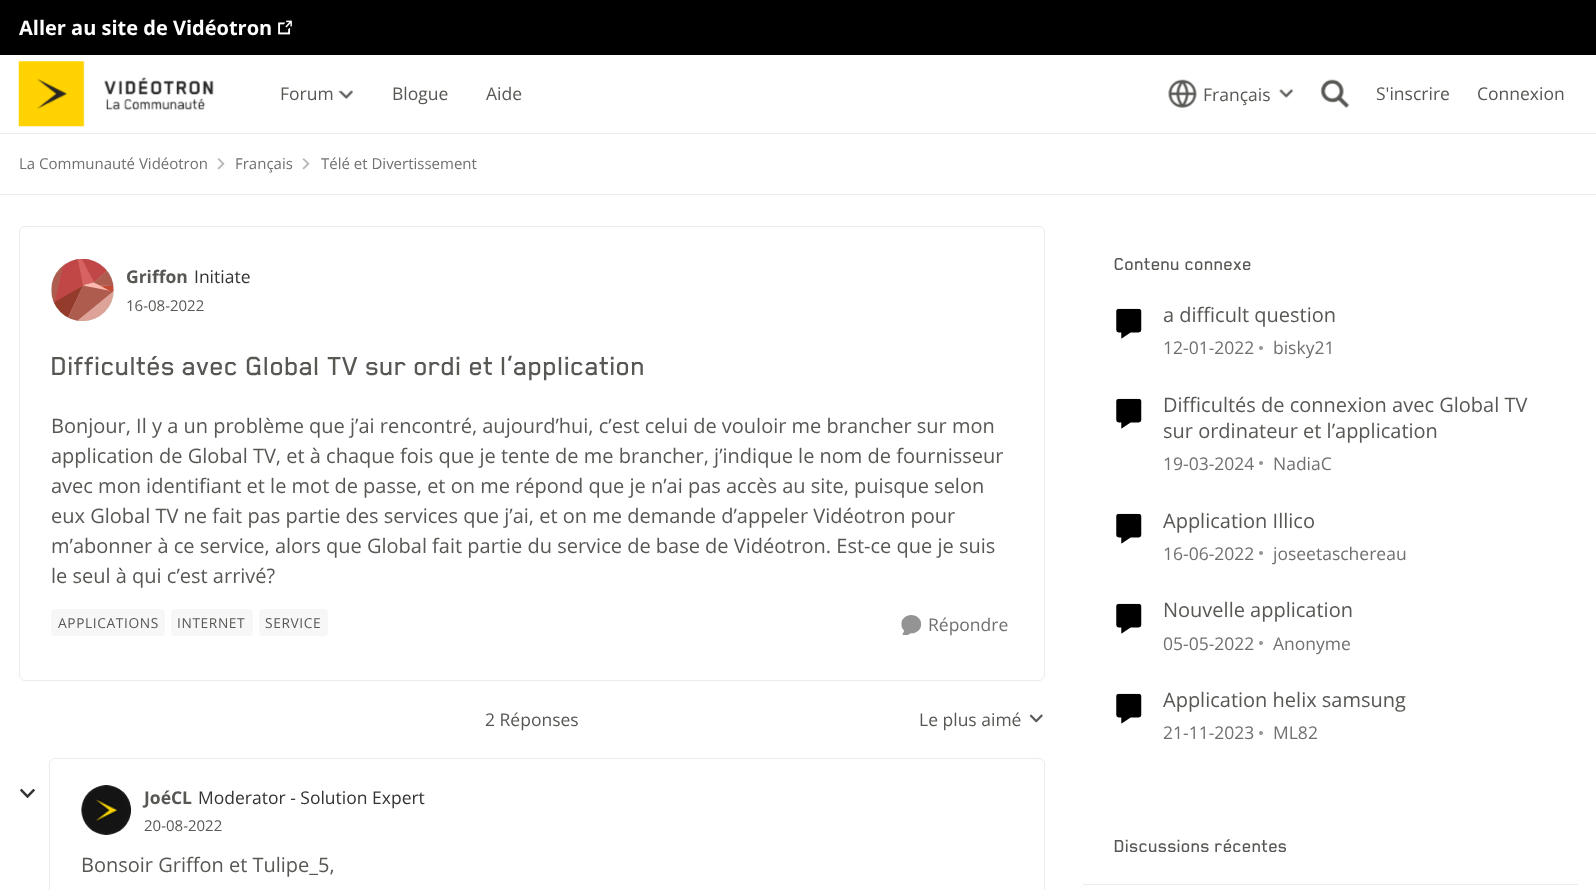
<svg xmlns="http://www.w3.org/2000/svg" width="1596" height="890">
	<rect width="100%" height="100%" fill="#FFFFFF" />
	<rect x="0" y="0" width="1596" height="55" fill="#000000" />
	<text x="19" y="35" font-family="Open Sans" font-size="20" font-weight="700" fill="#FFFFFF">Aller au site de Vidéotron</text>
	<image x="278" y="20" width="14" height="15" href="assets/img1.png" />
	<rect x="0" y="133" width="1596" height="1" fill="#EBEBEB" />
	<image x="18" y="61" width="196" height="66" href="assets/img2.png" />
	<text x="280" y="100" font-family="Open Sans" font-size="17.5" fill="#575754">Forum</text>
	<image x="338" y="90" width="15" height="10" href="assets/img3.png" />
	<g font-family="Open Sans" font-size="17.5" fill="#575754">
		<text x="392" y="100">Blogue</text>
		<text x="486" y="100">Aide</text>
	</g>
	<image x="1168" y="79" width="29" height="29" href="assets/img4.png" />
	<text x="1203" y="101" font-family="Open Sans" font-size="17.5" fill="#575754">Français</text>
	<image x="1279" y="88" width="15" height="10" href="assets/img5.png" />
	<image x="1320" y="79" width="30" height="29" href="assets/img6.png" />
	<g font-family="Open Sans" font-size="17.5" fill="#575754">
		<text x="1376" y="100">S'inscrire</text>
		<text x="1477" y="100">Connexion</text>
	</g>
	<rect x="0" y="194" width="1596" height="1" fill="#EBEBEB" />
	<text x="19" y="169" font-family="Open Sans" font-size="15" fill="#707070">La Communauté Vidéotron</text>
	<image x="217" y="158" width="8" height="12" href="assets/img7.png" />
	<text x="235" y="169" font-family="Open Sans" font-size="15" fill="#707070">Français</text>
	<image x="302" y="158" width="8" height="12" href="assets/img7.png" />
	<text x="321" y="169" font-family="Open Sans" font-size="15" fill="#707070">Télé et Divertissement</text>
	<rect x="19.5" y="226.5" width="1025" height="454" rx="5.5" fill="none" stroke="#EBEBEB" />
	<rect x="51" y="259" width="63" height="62" rx="31" fill="#D9D9D9" />
	<image x="51" y="259" width="63" height="62" href="assets/img8.png" />
	<text x="126" y="283" font-family="Open Sans" font-size="17.5" font-weight="700" fill="#575754">Griffon</text>
	<text x="194" y="283" font-family="Open Sans" font-size="17.5" fill="#333333">Initiate</text>
	<text x="126" y="311" font-family="Open Sans" font-size="15" fill="#575754">16-08-2022</text>
	<text x="51" y="375" font-family="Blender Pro" font-size="30" font-weight="500" fill="#575754">Difficultés avec Global TV sur ordi et l’application</text>
	<g font-family="Open Sans" font-size="20" fill="#575754">
		<text x="51" y="433">Bonjour, Il y a un problème que j’ai rencontré, aujourd’hui, c’est celui de vouloir me brancher sur mon</text>
		<text x="51" y="463">application de Global TV, et à chaque fois que je tente de me brancher, j’indique le nom de fournisseur</text>
		<text x="51" y="493">avec mon identifiant et le mot de passe, et on me répond que je n’ai pas accès au site, puisque selon</text>
		<text x="51" y="523">eux Global TV ne fait pas partie des services que j’ai, et on me demande d’appeler Vidéotron pour</text>
		<text x="51" y="553">m’abonner à ce service, alors que Global fait partie du service de base de Vidéotron. Est-ce que je suis</text>
		<text x="51" y="583">le seul à qui c’est arrivé?</text>
	</g>
	<rect x="51" y="609" width="114" height="27" rx="4" fill="#F7F7F7" />
	<text x="58" y="628" font-family="Open Sans" font-size="13.75" letter-spacing="0.6" fill="#575754">APPLICATIONS</text>
	<rect x="171" y="609" width="82" height="27" rx="4" fill="#F7F7F7" />
	<text x="177" y="628" font-family="Open Sans" font-size="13.75" letter-spacing="0.6" fill="#575754">INTERNET</text>
	<rect x="259" y="609" width="69" height="27" rx="4" fill="#F7F7F7" />
	<text x="265" y="628" font-family="Open Sans" font-size="13.75" letter-spacing="0.6" fill="#575754">SERVICE</text>
	<image x="901" y="615" width="21" height="20" href="assets/img9.png" />
	<text x="928" y="631" font-family="Open Sans" font-size="17.5" fill="#707070">Répondre</text>
	<g font-family="Open Sans" font-size="17.5" fill="#575754">
		<text x="485" y="726">2 Réponses</text>
		<text x="919" y="726">Le plus aimé</text>
	</g>
	<image x="1029" y="714" width="14" height="9" href="assets/img10.png" />
	<image x="20" y="788" width="15" height="10" href="assets/img11.png" />
	<rect x="49.5" y="758.5" width="995" height="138" rx="5.5" fill="none" stroke="#EBEBEB" />
	<circle cx="106" cy="810" r="25" fill="#D9D9D9" />
	<image x="81" y="785" width="51" height="50" href="assets/img12.png" />
	<text x="144" y="804" font-family="Open Sans" font-size="17.5" font-weight="700" fill="#575754">JoéCL</text>
	<text x="198" y="804" font-family="Open Sans" font-size="17.5" fill="#333333">Moderator - Solution Expert</text>
	<text x="144" y="831" font-family="Open Sans" font-size="15" fill="#575754">20-08-2022</text>
	<text x="81" y="872" font-family="Open Sans" font-size="20" fill="#575754">Bonsoir Griffon et Tulipe_5,</text>
	<text x="1114" y="270" font-family="Blender Pro" font-size="20" font-weight="500" fill="#575754">Contenu connexe</text>
	<image x="1116" y="308" width="26" height="31" href="assets/img13.png" />
	<text x="1163" y="322" font-family="Open Sans" font-size="20" fill="#575754">a difficult question</text>
	<text x="1163" y="354" font-family="Open Sans" font-size="17.5" fill="#707070">12-01-2022</text>
	<circle cx="1261" cy="348" r="2" fill="#949494" />
	<text x="1273" y="354" font-family="Open Sans" font-size="17.5" fill="#707070">bisky21</text>
	<image x="1116" y="398" width="26" height="31" href="assets/img13.png" />
	<g font-family="Open Sans" font-size="20" fill="#575754">
		<text x="1163" y="412">Difficultés de connexion avec Global TV</text>
		<text x="1163" y="438">sur ordinateur et l’application</text>
	</g>
	<text x="1163" y="470" font-family="Open Sans" font-size="17.5" fill="#707070">19-03-2024</text>
	<circle cx="1261" cy="463" r="2" fill="#949494" />
	<text x="1273" y="470" font-family="Open Sans" font-size="17.5" fill="#707070">NadiaC</text>
	<image x="1116" y="513" width="26" height="31" href="assets/img13.png" />
	<text x="1163" y="528" font-family="Open Sans" font-size="20" fill="#575754">Application Illico</text>
	<text x="1163" y="560" font-family="Open Sans" font-size="17.5" fill="#707070">16-06-2022</text>
	<circle cx="1261" cy="553" r="2" fill="#949494" />
	<text x="1273" y="560" font-family="Open Sans" font-size="17.5" fill="#707070">joseetaschereau</text>
	<image x="1116" y="603" width="26" height="31" href="assets/img13.png" />
	<text x="1163" y="617" font-family="Open Sans" font-size="20" fill="#575754">Nouvelle application</text>
	<text x="1163" y="650" font-family="Open Sans" font-size="17.5" fill="#707070">05-05-2022</text>
	<circle cx="1261" cy="643" r="2" fill="#949494" />
	<text x="1273" y="650" font-family="Open Sans" font-size="17.5" fill="#707070">Anonyme</text>
	<image x="1116" y="693" width="26" height="31" href="assets/img13.png" />
	<text x="1163" y="707" font-family="Open Sans" font-size="20" fill="#575754">Application helix samsung</text>
	<text x="1163" y="739" font-family="Open Sans" font-size="17.5" fill="#707070">21-11-2023</text>
	<circle cx="1261" cy="733" r="2" fill="#949494" />
	<text x="1273" y="739" font-family="Open Sans" font-size="17.5" fill="#707070">ML82</text>
	<rect x="1083" y="884" width="495" height="1" fill="#EBEBEB" />
	<text x="1114" y="852" font-family="Blender Pro" font-size="20" font-weight="500" fill="#575754">Discussions récentes</text>
</svg>
